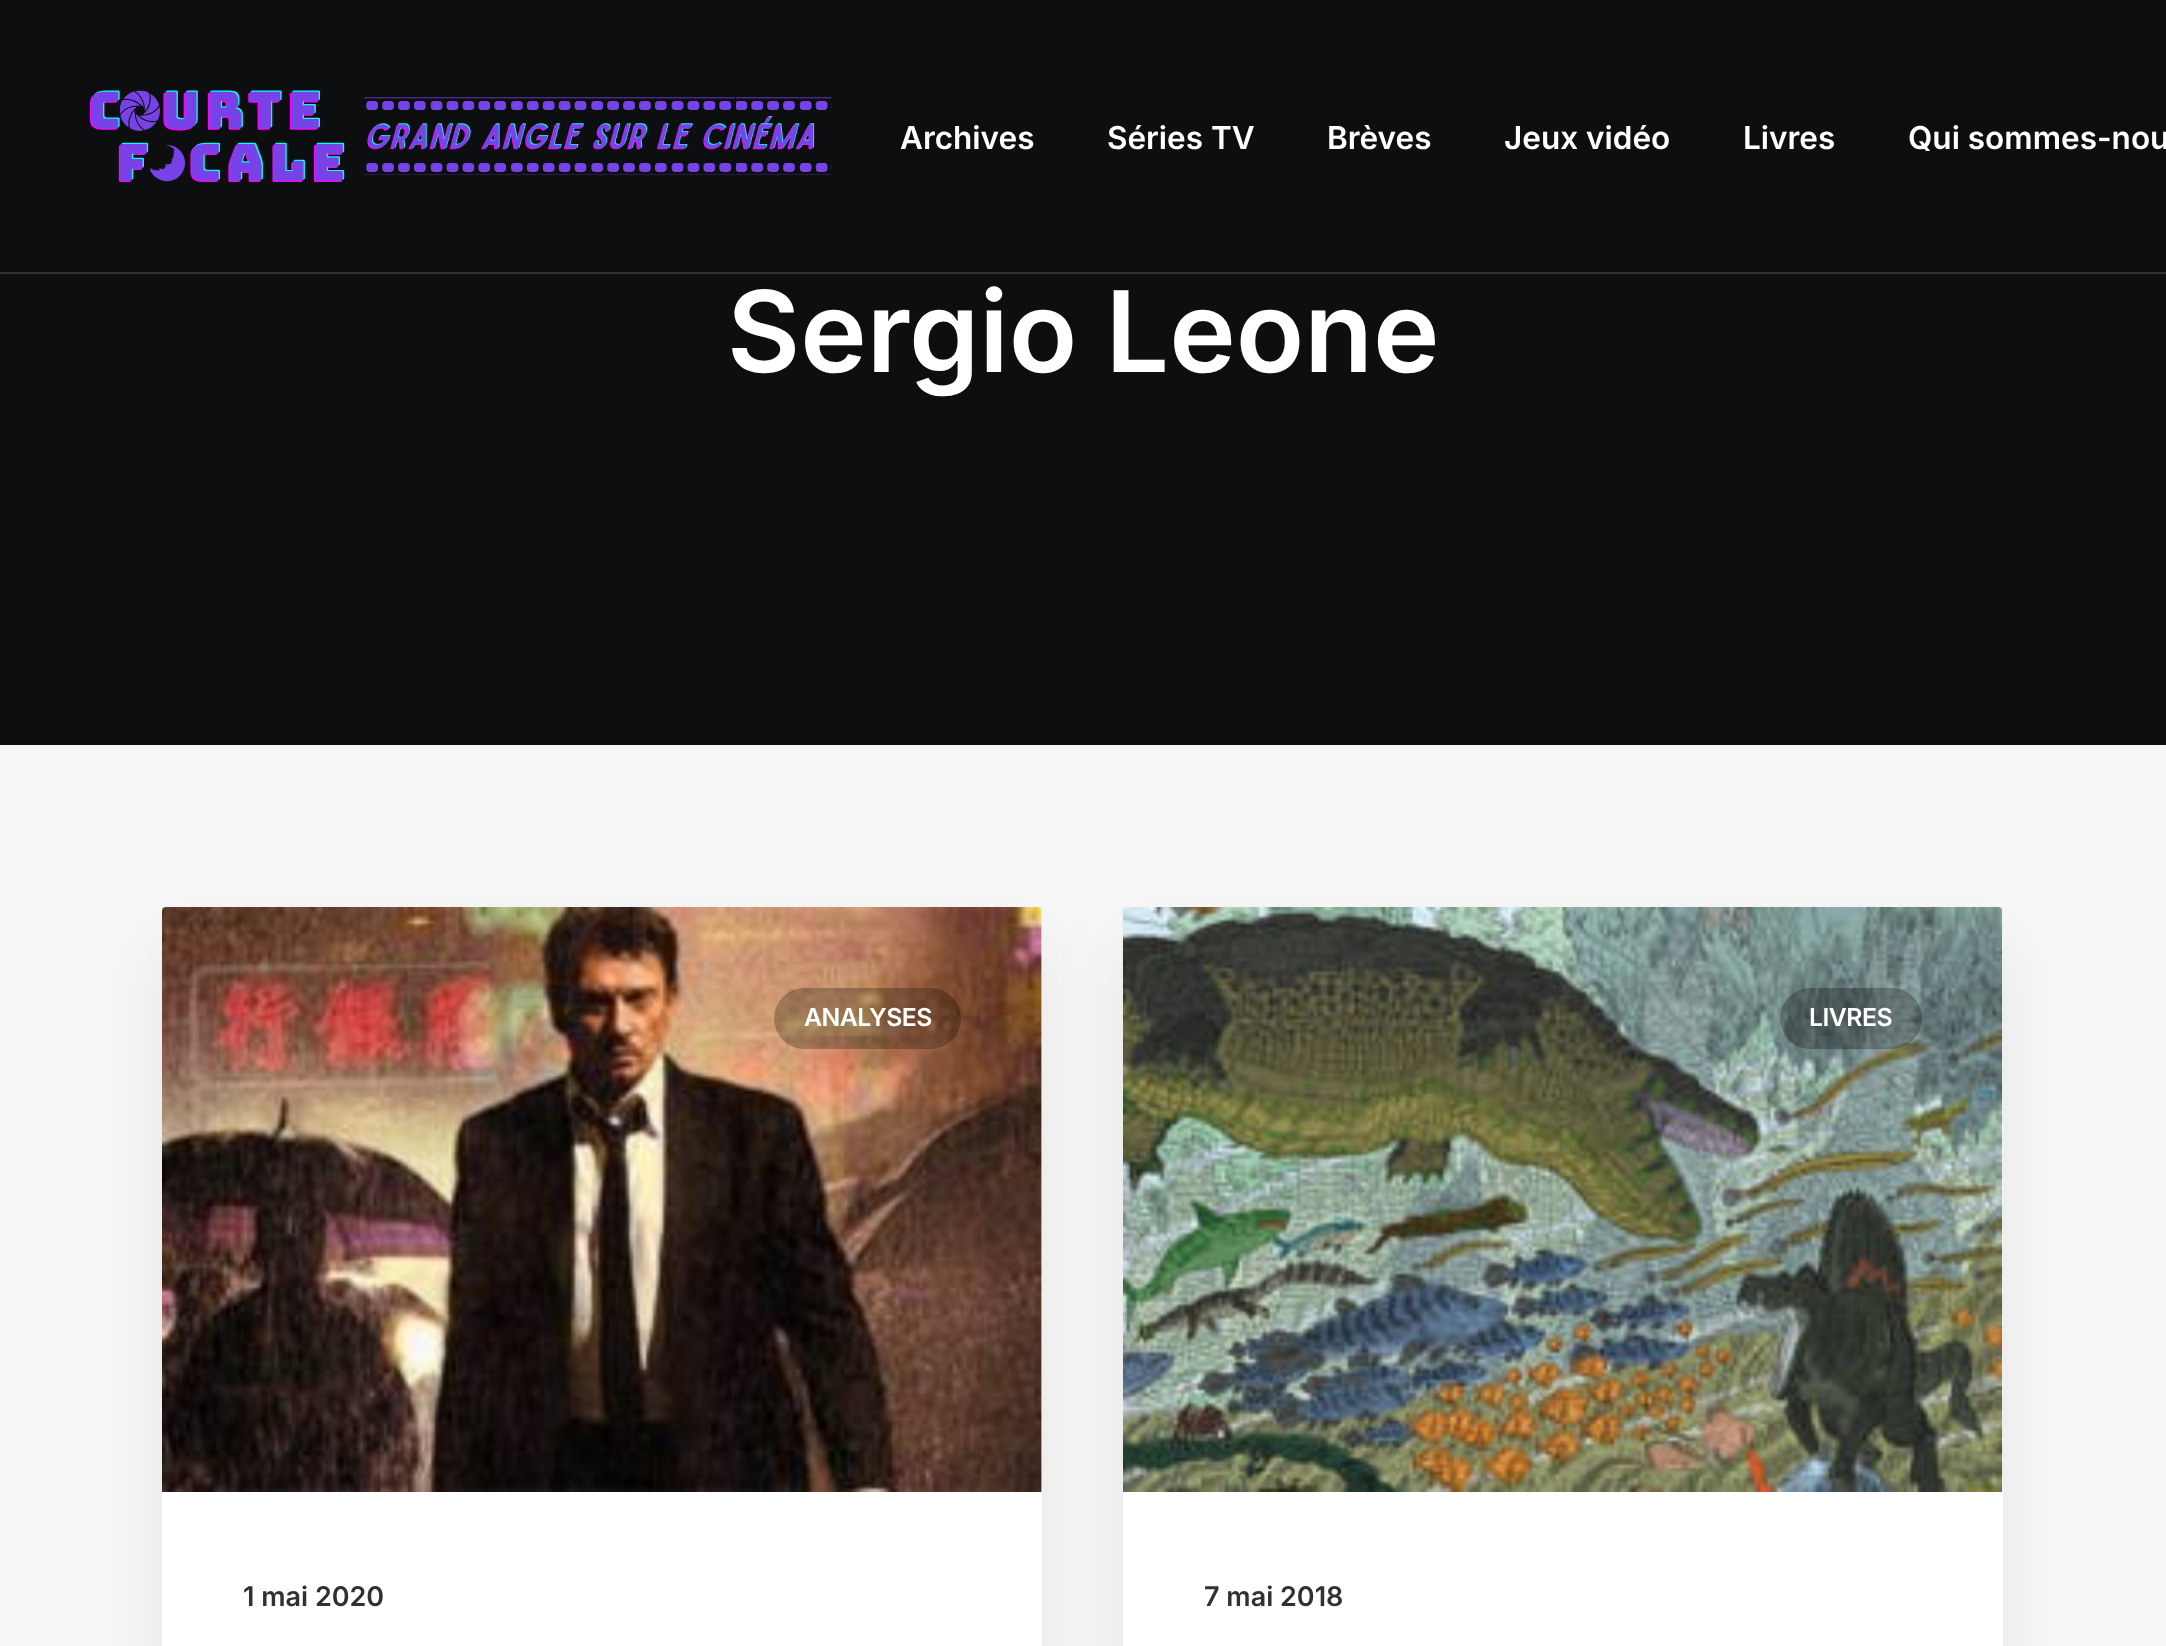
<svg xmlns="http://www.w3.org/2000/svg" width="2166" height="1646">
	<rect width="100%" height="100%" fill="#0D0E10" />
	<image x="89" y="90" width="743" height="92" href="assets/img1.png" />
	<g font-family="Inter" font-size="31.5" font-weight="600" fill="#FFFFFF">
		<text x="900" y="149">Archives</text>
		<text x="1107" y="149">Séries TV</text>
		<text x="1327" y="149">Brèves</text>
		<text x="1504" y="149">Jeux vidéo</text>
		<text x="1743" y="149">Livres</text>
		<text x="1908" y="149">Qui sommes-nou</text>
	</g>
	<rect x="0" y="272" width="2166" height="2" fill="#313234" />
	<text x="727" y="372" font-family="Inter" font-size="112.5" font-weight="600" fill="#FFFFFF">Sergio Leone</text>
	<rect x="0" y="745" width="2166" height="901" fill="#F7F7F7" />
	<rect x="162" y="941" width="880" height="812" rx="5" fill="#000000" fill-opacity="0.07" filter="blur(34px)" />
	<rect x="162" y="907" width="880" height="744" rx="5" fill="#FFFFFF" />
	<image x="162" y="907" width="880" height="585" href="assets/img2.png" />
	<rect x="774" y="988" width="187" height="61" rx="30.5" fill="#000000" fill-opacity="0.25" />
	<text x="804" y="1026" font-family="Inter" font-size="24.75" font-weight="600" letter-spacing="-0.5" fill="#FFFFFF">ANALYSES</text>
	<text x="243" y="1606" font-family="Inter" font-size="27" font-weight="600" fill="#303133">1 mai 2020</text>
	<rect x="1123" y="941" width="880" height="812" rx="5" fill="#000000" fill-opacity="0.07" filter="blur(34px)" />
	<rect x="1123" y="907" width="880" height="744" rx="5" fill="#FFFFFF" />
	<image x="1123" y="907" width="880" height="585" href="assets/img3.png" />
	<rect x="1780" y="988" width="142" height="61" rx="30.5" fill="#000000" fill-opacity="0.25" />
	<text x="1809" y="1026" font-family="Inter" font-size="24.75" font-weight="600" letter-spacing="-0.5" fill="#FFFFFF">LIVRES</text>
	<text x="1204" y="1606" font-family="Inter" font-size="27" font-weight="600" fill="#303133">7 mai 2018</text>
</svg>
